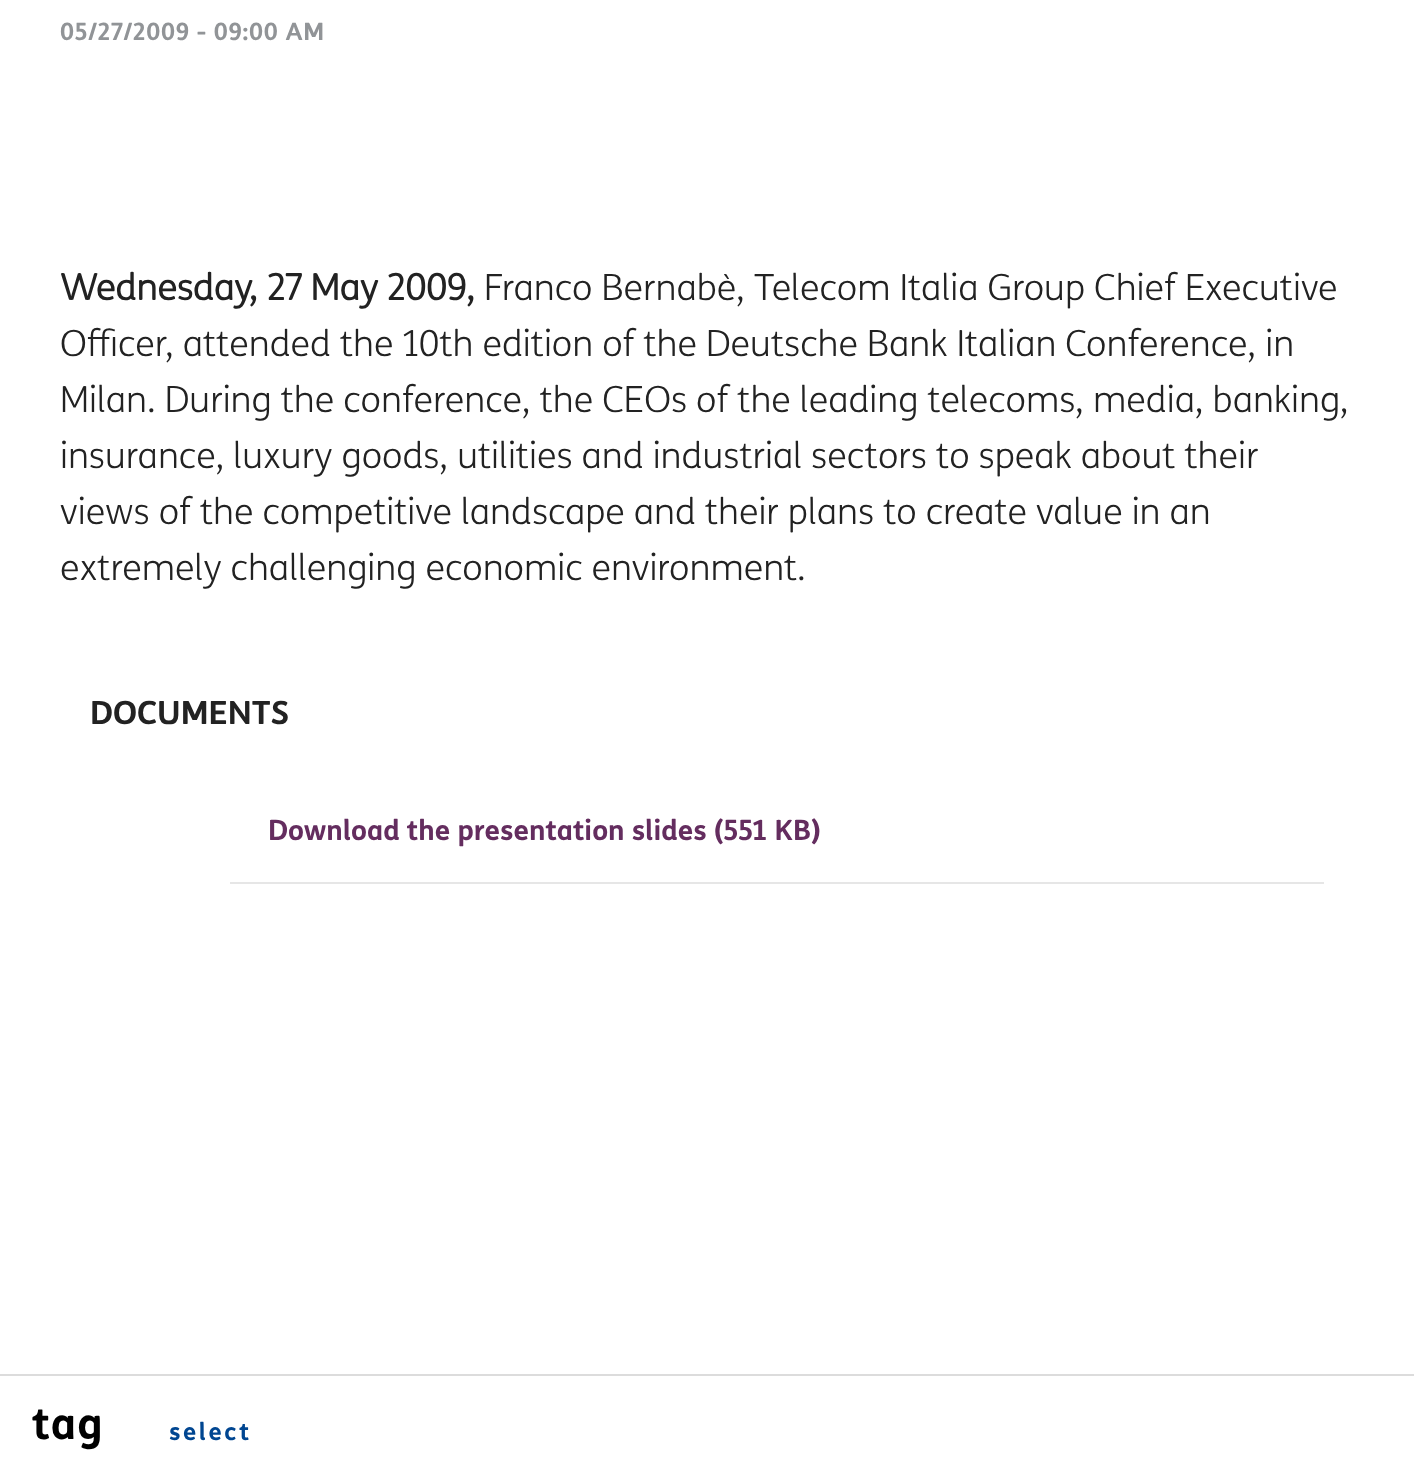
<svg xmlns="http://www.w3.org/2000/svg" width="1414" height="1473">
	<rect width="100%" height="100%" fill="#FFFFFF" />
	<text x="60" y="40" font-family="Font" font-size="24" font-weight="700" letter-spacing="0.75" fill="#919497">05/27/2009 - 09:00 AM</text>
	<text x="60" y="300" font-family="'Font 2'" font-size="36" font-weight="700" fill="#222222">Wednesday, 27 May 2009,</text>
	<g font-family="Font" font-size="36" font-weight="300" fill="#222222">
		<text x="484" y="300">Franco Bernabè, Telecom Italia Group Chief Executive</text>
		<text x="60" y="356">Officer, attended the 10th edition of the Deutsche Bank Italian Conference, in</text>
		<text x="60" y="412">Milan. During the conference, the CEOs of the leading telecoms, media, banking,</text>
		<text x="60" y="468">insurance, luxury goods, utilities and industrial sectors to speak about their</text>
		<text x="60" y="524">views of the competitive landscape and their plans to create value in an</text>
		<text x="60" y="580">extremely challenging economic environment.</text>
	</g>
	<text x="90" y="724" font-family="Font" font-size="32" font-weight="700" fill="#222222">DOCUMENTS</text>
	<text x="268" y="840" font-family="Font" font-size="28" font-weight="700" fill="#642D5F">Download the presentation slides (551 KB)</text>
	<rect x="230" y="882" width="1094" height="2" fill="#E6E6E6" />
	<rect x="0" y="1374" width="1414" height="2" fill="#DCDCDC" />
	<text x="32" y="1439" font-family="Font" font-size="44" font-weight="700" letter-spacing="1" fill="#000000">tag</text>
	<text x="169" y="1440" font-family="Font" font-size="24" font-weight="700" letter-spacing="2.5" fill="#004691">select</text>
</svg>
